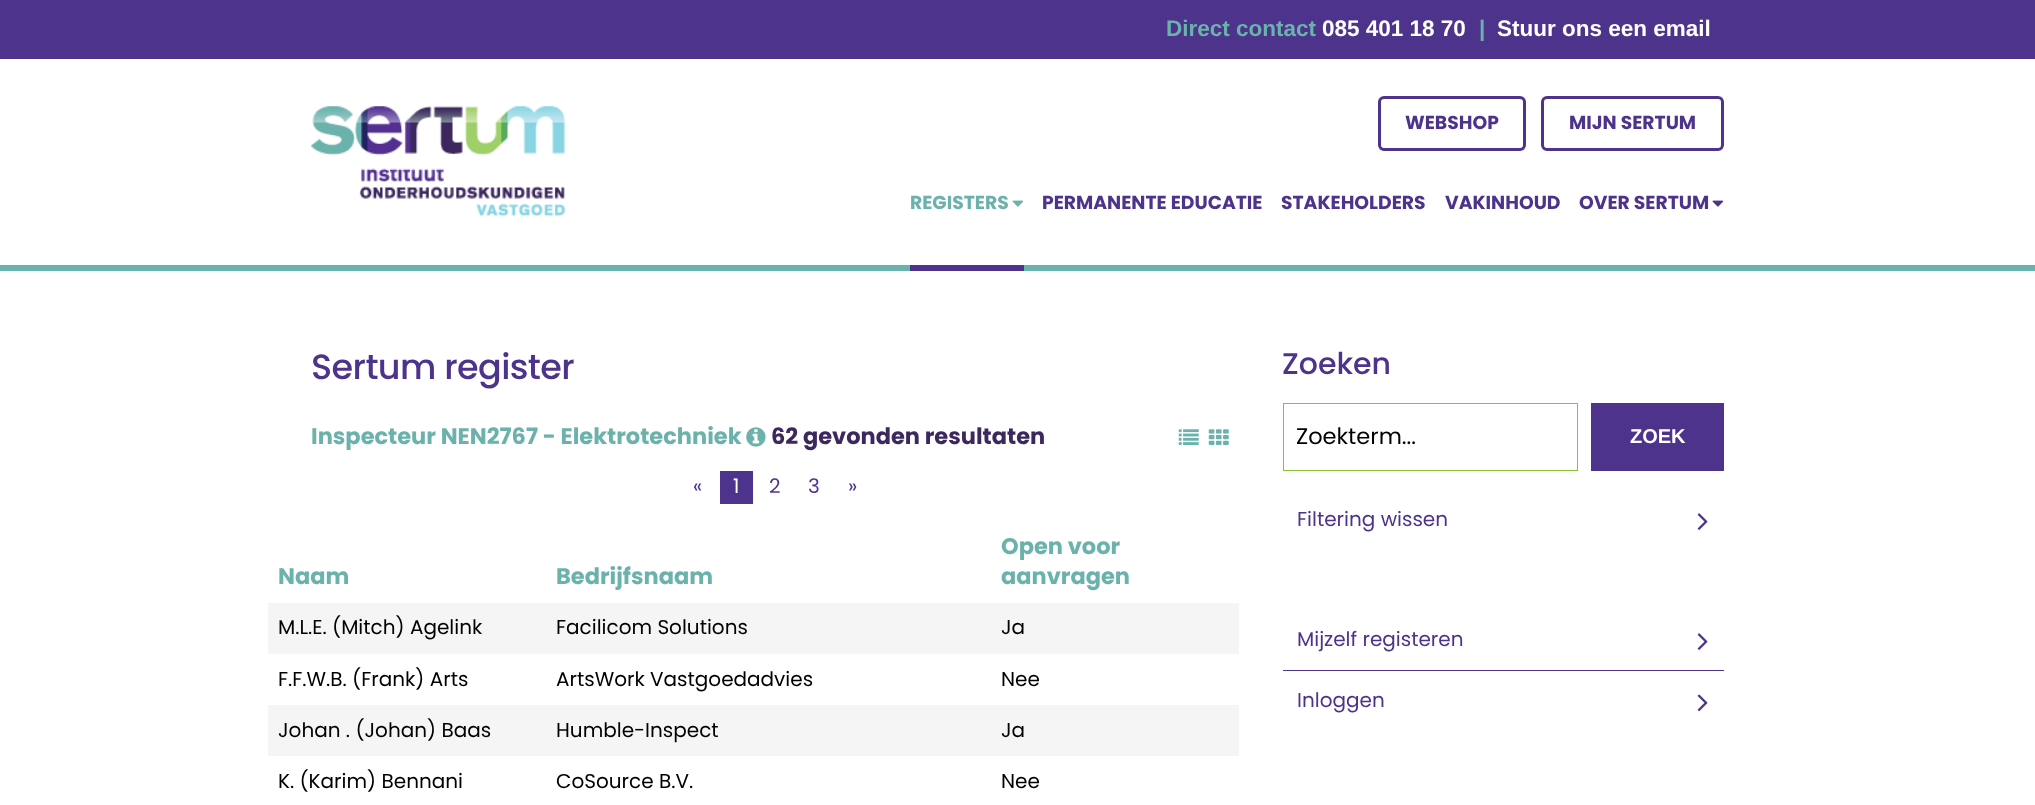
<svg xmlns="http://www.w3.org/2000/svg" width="2035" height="805">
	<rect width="100%" height="100%" fill="#FFFFFF" />
	<rect x="0" y="265" width="2035" height="6" fill="#6AB2AB" />
	<rect x="0" y="0" width="2035" height="59" fill="#4D338C" />
	<text x="1166" y="36" font-family="Liberation Sans" font-size="22.5" font-weight="700" fill="#6AB2AB">Direct contact</text>
	<text x="1322" y="36" font-family="Liberation Sans" font-size="22.5" font-weight="700" fill="#FFFFFF">085 401 18 70</text>
	<text x="1479" y="36" font-family="Liberation Sans" font-size="22.5" font-weight="700" fill="#6AB2AB">|</text>
	<text x="1497" y="36" font-family="Liberation Sans" font-size="22.5" font-weight="700" fill="#FFFFFF">Stuur ons een email</text>
	<image x="311" y="106" width="254" height="111" href="assets/img1.png" />
	<rect x="1379.5" y="97.5" width="145" height="52" rx="4.5" fill="none" stroke="#4D338C" stroke-width="3" />
	<text x="1405" y="129" font-family="Poppins" font-size="18.75" font-weight="700" fill="#4D338C">WEBSHOP</text>
	<rect x="1542.5" y="97.5" width="180" height="52" rx="4.5" fill="none" stroke="#4D338C" stroke-width="3" />
	<text x="1569" y="129" font-family="Poppins" font-size="18.75" font-weight="700" fill="#4D338C">MIJN SERTUM</text>
	<rect x="910" y="265" width="114" height="6" fill="#4D338C" />
	<text x="910" y="209" font-family="Poppins" font-size="18.75" font-weight="700" fill="#6AB2AB">REGISTERS</text>
	<image x="1012" y="200" width="12" height="7" href="assets/img2.png" />
	<g font-family="Poppins" font-size="18.75" font-weight="700" fill="#4D338C">
		<text x="1042" y="209">PERMANENTE EDUCATIE</text>
		<text x="1281" y="209">STAKEHOLDERS</text>
		<text x="1445" y="209">VAKINHOUD</text>
		<text x="1579" y="209">OVER SERTUM</text>
	</g>
	<image x="1712" y="200" width="12" height="7" href="assets/img3.png" />
	<text x="311" y="379" font-family="Poppins" font-size="35" font-weight="500" letter-spacing="-0.6" fill="#4D338C">Sertum register</text>
	<text x="311" y="444" font-family="Poppins" font-size="22.5" font-weight="700" fill="#6AB2AB">Inspecteur NEN2767 - Elektrotechniek</text>
	<image x="746" y="427" width="20" height="20" href="assets/img4.png" />
	<text x="771" y="444" font-family="Poppins" font-size="22.5" font-weight="700" fill="#3C285E">62 gevonden resultaten</text>
	<image x="1178" y="429" width="21" height="16" href="assets/img5.png" />
	<image x="1208" y="429" width="21" height="16" href="assets/img6.png" />
	<text x="693" y="493" font-family="Poppins" font-size="20" fill="#4D338C">«</text>
	<rect x="720" y="471" width="33" height="33" fill="#4D338C" />
	<text x="733" y="493" font-family="Poppins" font-size="20" fill="#FFFFFF">1</text>
	<g font-family="Poppins" font-size="20" fill="#4D338C">
		<text x="769" y="493">2</text>
		<text x="808" y="493">3</text>
		<text x="848" y="493">»</text>
	</g>
	<g font-family="Poppins" font-size="22.5" font-weight="700" fill="#6AB2AB">
		<text x="278" y="584">Naam</text>
		<text x="556" y="584">Bedrijfsnaam</text>
		<text x="1001" y="554">Open voor</text>
		<text x="1001" y="584">aanvragen</text>
	</g>
	<rect x="268" y="603" width="971" height="51" fill="#F5F5F5" />
	<g font-family="Poppins" font-size="20" fill="#000000">
		<text x="278" y="634">M.L.E. (Mitch) Agelink</text>
		<text x="556" y="634">Facilicom Solutions</text>
		<text x="1001" y="634">Ja</text>
		<text x="278" y="686">F.F.W.B. (Frank) Arts</text>
		<text x="556" y="686">ArtsWork Vastgoedadvies</text>
		<text x="1001" y="686">Nee</text>
	</g>
	<rect x="268" y="705" width="971" height="51" fill="#F5F5F5" />
	<g font-family="Poppins" font-size="20" fill="#000000">
		<text x="278" y="737">Johan . (Johan) Baas</text>
		<text x="556" y="737">Humble-Inspect</text>
		<text x="1001" y="737">Ja</text>
		<text x="278" y="788">K. (Karim) Bennani</text>
		<text x="556" y="788">CoSource B.V.</text>
		<text x="1001" y="788">Nee</text>
	</g>
	<text x="1282" y="374" font-family="Poppins" font-size="30" font-weight="500" fill="#4D338C">Zoeken</text>
	<rect x="1283.5" y="403.5" width="294" height="67" fill="none" stroke="#8AC237" />
	<text x="1296" y="444" font-family="Poppins" font-size="22.5" fill="#000000">Zoekterm...</text>
	<rect x="1591" y="403" width="133" height="68" fill="#4D338C" />
	<text x="1630" y="443" font-family="Liberation Sans" font-size="20" font-weight="700" fill="#FFFFFF">ZOEK</text>
	<text x="1297" y="526" font-family="Poppins" font-size="20" fill="#4D338C">Filtering wissen</text>
	<image x="1697" y="513" width="11" height="17" href="assets/img7.png" />
	<text x="1297" y="646" font-family="Poppins" font-size="20" fill="#4D338C">Mijzelf registeren</text>
	<image x="1697" y="633" width="11" height="17" href="assets/img7.png" />
	<rect x="1283" y="670" width="441" height="1" fill="#4D338C" />
	<text x="1297" y="707" font-family="Poppins" font-size="20" fill="#4D338C">Inloggen</text>
	<image x="1697" y="694" width="11" height="18" href="assets/img8.png" />
</svg>
